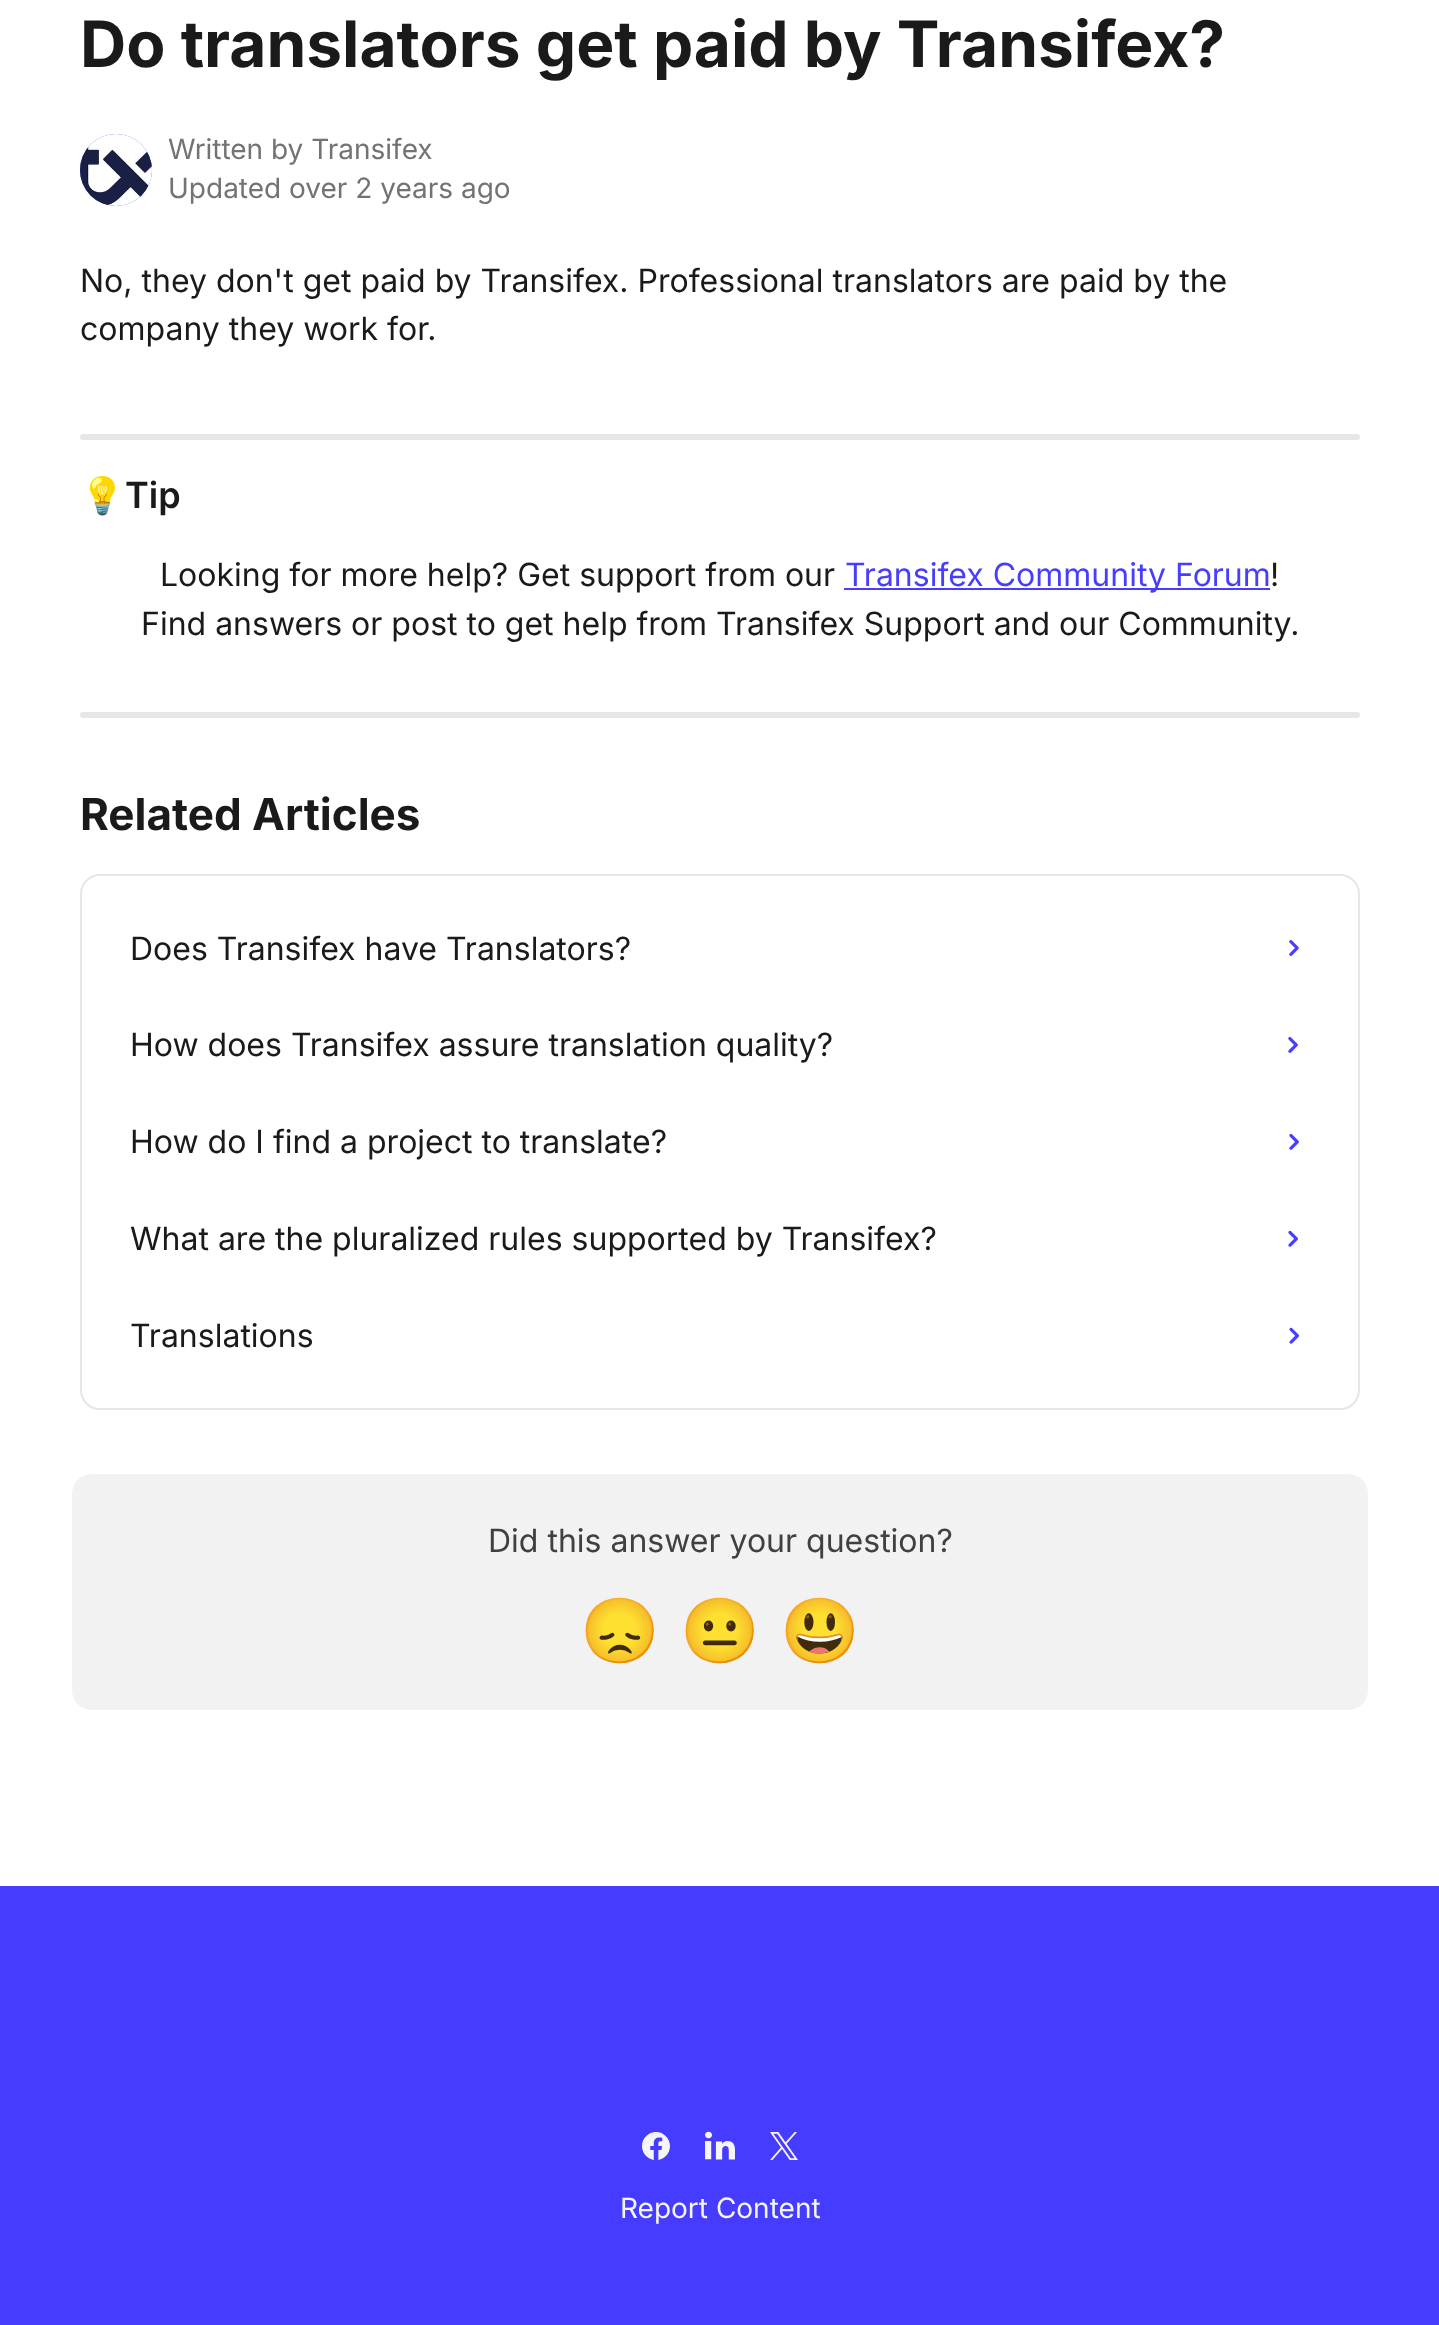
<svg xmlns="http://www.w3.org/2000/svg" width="1439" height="2325">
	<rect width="100%" height="100%" fill="#FFFFFF" />
	<text x="80" y="67" font-family="Inter" font-size="64" font-weight="700" fill="#1A1A1A">Do translators get paid by Transifex?</text>
	<circle cx="116" cy="170" r="36" fill="#473DFF" />
	<image x="80" y="134" width="72" height="72" href="assets/img1.png" />
	<g font-family="Inter" font-size="28" fill="#737373">
		<text x="168" y="159">Written by Transifex</text>
		<text x="168" y="198">Updated over 2 years ago</text>
	</g>
	<g font-family="Inter" font-size="32" fill="#1A1A1A">
		<text x="80" y="292">No, they don't get paid by Transifex. Professional translators are paid by the</text>
		<text x="80" y="340">company they work for.</text>
	</g>
	<rect x="80" y="434" width="1280" height="6" rx="3" fill="#E6E6E6" />
	<text x="80" y="508" font-family="Noto Color Emoji" font-size="36" font-weight="700" fill="#1A1A1A">💡</text>
	<text x="125" y="508" font-family="Inter" font-size="36" font-weight="600" fill="#1A1A1A">Tip</text>
	<text x="160" y="586" font-family="Inter" font-size="32" fill="#1A1A1A">Looking for more help? Get support from our</text>
	<rect x="844" y="588" width="426" height="2" fill="#473DFF" />
	<text x="845" y="586" font-family="Inter" font-size="32" fill="#473DFF">Transifex Community Forum</text>
	<g font-family="Inter" font-size="32" fill="#1A1A1A">
		<text x="1270" y="586">!</text>
		<text x="141" y="635">Find answers or post to get help from Transifex Support and our Community.</text>
	</g>
	<rect x="80" y="712" width="1280" height="6" rx="3" fill="#E6E6E6" />
	<text x="80" y="830" font-family="Inter" font-size="44" font-weight="700" fill="#1A1A1A">Related Articles</text>
	<rect x="81" y="875" width="1278" height="534" rx="19" fill="none" stroke="#E6E6E6" stroke-width="2" />
	<text x="130" y="960" font-family="Inter" font-size="32" fill="#1A1A1A">Does Transifex have Translators?</text>
	<image x="1289" y="940" width="10" height="16" href="assets/img2.png" />
	<text x="130" y="1056" font-family="Inter" font-size="32" fill="#1A1A1A">How does Transifex assure translation quality?</text>
	<image x="1288" y="1037" width="10" height="16" href="assets/img3.png" />
	<text x="130" y="1153" font-family="Inter" font-size="32" fill="#1A1A1A">How do I find a project to translate?</text>
	<image x="1289" y="1133" width="10" height="17" href="assets/img4.png" />
	<text x="130" y="1250" font-family="Inter" font-size="32" fill="#1A1A1A">What are the pluralized rules supported by Transifex?</text>
	<image x="1288" y="1230" width="10" height="17" href="assets/img5.png" />
	<text x="130" y="1347" font-family="Inter" font-size="32" fill="#1A1A1A">Translations</text>
	<image x="1289" y="1327" width="10" height="17" href="assets/img6.png" />
	<rect x="72" y="1474" width="1296" height="236" rx="20" fill="#F2F2F2" />
	<text x="488" y="1552" font-family="Inter" font-size="32" fill="#404040">Did this answer your question?</text>
	<g font-family="Noto Color Emoji" font-size="64" fill="#404040">
		<text x="580" y="1653">😞</text>
		<text x="680" y="1653">😐</text>
		<text x="780" y="1653">😃</text>
	</g>
	<rect x="0" y="1886" width="1439" height="439" fill="#463CFF" />
	<image x="642" y="2132" width="28" height="28" href="assets/img7.png" />
	<image x="705" y="2131" width="30" height="29" href="assets/img8.png" />
	<image x="770" y="2132" width="28" height="28" href="assets/img9.png" />
	<text x="620" y="2218" font-family="Inter" font-size="28" fill="#F5F5F5">Report Content</text>
</svg>
